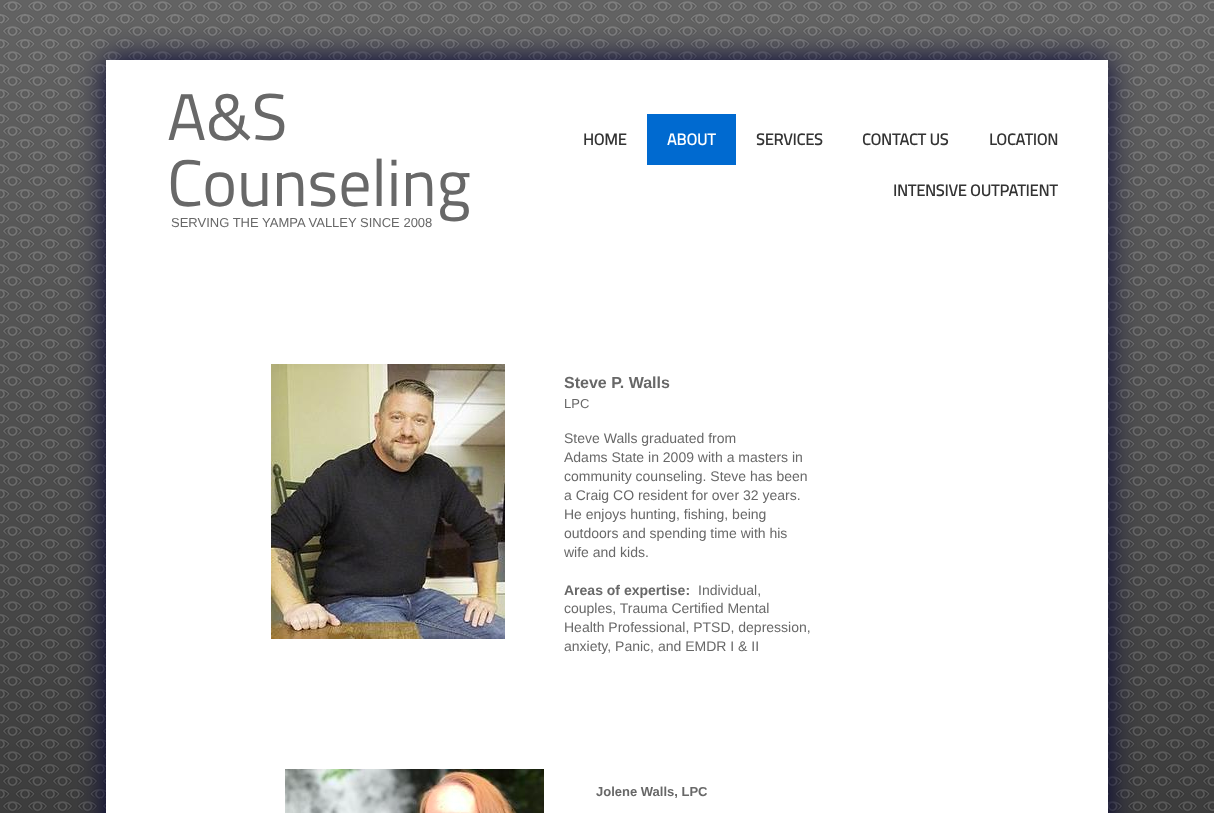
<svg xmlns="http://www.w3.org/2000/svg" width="1214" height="813">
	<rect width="100%" height="100%" fill="#FFFFFF" />
	<image x="0" y="0" width="1214" height="813" href="assets/img1.png" />
	<rect x="106" y="60" width="1002" height="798" fill="#000033" filter="blur(15px)" />
	<rect x="106" y="60" width="1002" height="753" fill="#FFFFFF" />
	<g font-family="Titillium Web" font-size="66" fill="#686868">
		<text x="167" y="140">A&amp;S</text>
		<text x="167" y="206">Counseling</text>
	</g>
	<text x="171" y="227" font-family="Liberation Sans" font-size="13" fill="#686868">SERVING THE YAMPA VALLEY SINCE 2008</text>
	<text x="583" y="145" font-family="Titillium Web" font-size="16" font-weight="700" fill="#333333">HOME</text>
	<rect x="647" y="114" width="89" height="51" fill="#006AD0" />
	<text x="667" y="145" font-family="Titillium Web" font-size="16" font-weight="700" fill="#FFFFFF">ABOUT</text>
	<g font-family="Titillium Web" font-size="16" font-weight="700" fill="#333333">
		<text x="756" y="145">SERVICES</text>
		<text x="862" y="145">CONTACT US</text>
		<text x="989" y="145">LOCATION</text>
		<text x="893" y="196">INTENSIVE OUTPATIENT</text>
	</g>
	<image x="271" y="364" width="234" height="275" href="assets/img2.png" />
	<text x="564" y="388" font-family="Liberation Sans" font-size="16" font-weight="700" fill="#686868">Steve P. Walls</text>
	<text x="564" y="408" font-family="Liberation Sans" font-size="13" fill="#686868">LPC</text>
	<g font-family="Liberation Sans" font-size="14" fill="#686868">
		<text x="564" y="443">Steve Walls graduated from</text>
		<text x="564" y="462">Adams State in 2009 with a masters in</text>
		<text x="564" y="481">community counseling. Steve has been</text>
		<text x="564" y="500">a Craig CO resident for over 32 years.</text>
		<text x="564" y="519">He enjoys hunting, fishing, being</text>
		<text x="564" y="538">outdoors and spending time with his</text>
		<text x="564" y="557">wife and kids.</text>
	</g>
	<text x="564" y="595" font-family="Liberation Sans" font-size="14" font-weight="700" fill="#686868">Areas of expertise:</text>
	<g font-family="Liberation Sans" font-size="14" fill="#686868">
		<text x="698" y="595">Individual,</text>
		<text x="564" y="613">couples, Trauma Certified Mental</text>
		<text x="564" y="632">Health Professional, PTSD, depression,</text>
		<text x="564" y="651">anxiety, Panic, and EMDR I &amp; II</text>
	</g>
	<image x="285" y="769" width="259" height="44" href="assets/img3.png" />
	<text x="596" y="796" font-family="Liberation Sans" font-size="13" font-weight="700" fill="#686868">Jolene Walls, LPC</text>
</svg>
